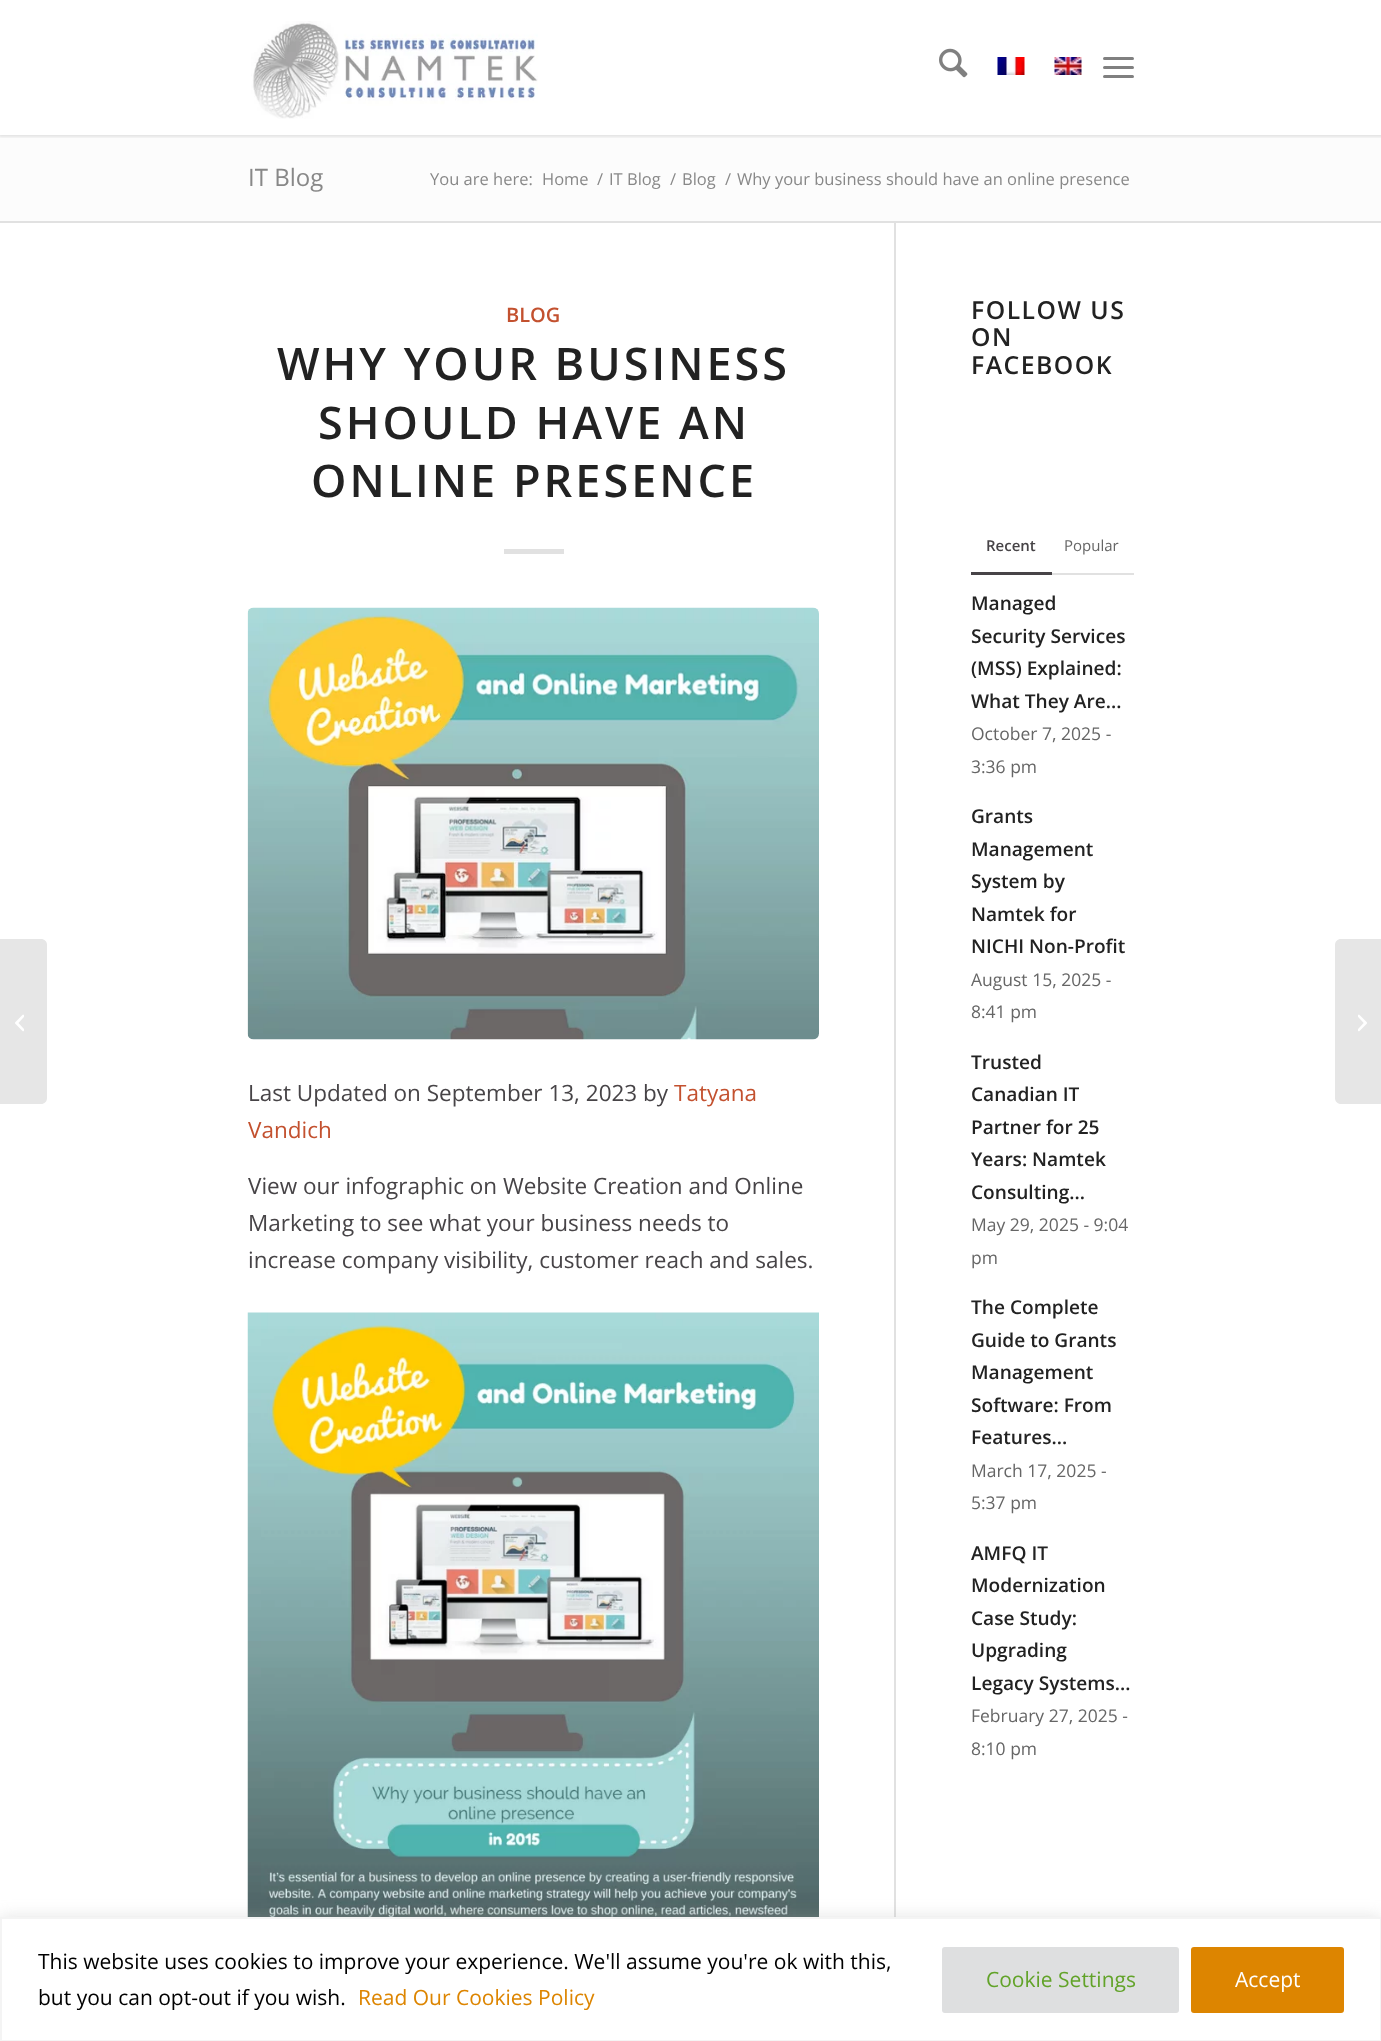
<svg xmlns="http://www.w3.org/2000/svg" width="1381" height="2041">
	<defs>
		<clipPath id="clip1"><rect x="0" y="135" width="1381" height="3" /></clipPath>
	</defs>
	<rect width="100%" height="100%" fill="#FFFFFF" />
	<rect x="0" y="135" width="1381" height="86" fill="#FCFCFC" />
	<g clip-path="url(#clip1)">
		<rect x="-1" y="-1" width="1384" height="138" fill="#000000" fill-opacity="0.1" filter="blur(1.5px)" />
	</g>
	<image x="251" y="21" width="287" height="98" href="assets/img1.png" />
	<image x="939" y="48" width="29" height="30" href="assets/img2.png" />
	<image x="997" y="57" width="28" height="18" href="assets/img3.png" />
	<image x="1054" y="57" width="28" height="18" href="assets/img4.png" />
	<rect x="1103" y="66" width="31" height="3" rx="1.5" fill="#808080" />
	<rect x="1103" y="57" width="31" height="3" rx="1.5" fill="#808080" />
	<rect x="1103" y="75" width="31" height="3" rx="1.5" fill="#808080" />
	<path d="M0 939H41C44.5 939 47 941.5 47 945V1098C47 1101.5 44.5 1104 41 1104H0Z" fill="#E6E6E6" />
	<image x="15" y="1014" width="9" height="18" href="assets/img5.png" />
	<text x="248" y="186" font-family="Open Sans" font-size="24" fill="#888888">IT Blog</text>
	<g font-family="Open Sans" font-size="16.5" fill="#888888">
		<text x="430" y="185">You are here:</text>
		<text x="542" y="185">Home</text>
		<text x="597" y="185">/</text>
		<text x="609" y="185">IT Blog</text>
		<text x="670" y="185">/</text>
		<text x="682" y="185">Blog</text>
		<text x="725" y="185">/</text>
		<text x="737" y="185">Why your business should have an online presence</text>
	</g>
	<rect x="0" y="221" width="1381" height="2" fill="#E1E1E1" />
	<rect x="894" y="222" width="2" height="1695" fill="#E1E1E1" />
	<text x="506" y="322" font-family="Open Sans" font-size="20" font-weight="600" fill="#C3512F">BLOG</text>
	<g font-family="Open Sans" font-size="45" font-weight="600" letter-spacing="3" fill="#222222">
		<text x="277" y="380">WHY YOUR BUSINESS</text>
		<text x="318" y="439">SHOULD HAVE AN</text>
		<text x="311" y="497">ONLINE PRESENCE</text>
	</g>
	<rect x="504" y="549" width="60" height="5" fill="#E1E1E1" />
	<image x="247" y="607" width="572" height="433" href="assets/img6.png" />
	<text x="248" y="1101" font-family="Open Sans" font-size="22.5" fill="#474447">Last Updated on September 13, 2023 by</text>
	<g font-family="Open Sans" font-size="22.5" fill="#C3512F">
		<text x="674" y="1101">Tatyana</text>
		<text x="248" y="1138">Vandich</text>
	</g>
	<g font-family="Open Sans" font-size="22.5" fill="#474447">
		<text x="248" y="1194">View our infographic on Website Creation and Online</text>
		<text x="248" y="1231">Marketing to see what your business needs to</text>
		<text x="248" y="1268">increase company visibility, customer reach and sales.</text>
	</g>
	<image x="247" y="1312" width="572" height="605" href="assets/img7.png" />
	<g font-family="Open Sans" font-size="24.75" font-weight="600" letter-spacing="1.5" fill="#222222">
		<text x="971" y="319">FOLLOW US</text>
		<text x="971" y="346">ON</text>
		<text x="971" y="374">FACEBOOK</text>
	</g>
	<rect x="1052" y="573" width="82" height="2" fill="#E1E1E1" />
	<rect x="971" y="572" width="81" height="3" fill="#474447" />
	<text x="986" y="551" font-family="Open Sans" font-size="15" font-weight="600" fill="#474447">Recent</text>
	<text x="1064" y="551" font-family="Open Sans" font-size="15" fill="#666666">Popular</text>
	<g font-family="Open Sans" font-size="19.1" font-weight="600" fill="#222222">
		<text x="971" y="610">Managed</text>
		<text x="971" y="643">Security Services</text>
		<text x="971" y="675">(MSS) Explained:</text>
		<text x="971" y="708">What They Are...</text>
	</g>
	<g font-family="Open Sans" font-size="17.5" fill="#666666">
		<text x="971" y="740">October 7, 2025 -</text>
		<text x="971" y="773">3:36 pm</text>
	</g>
	<g font-family="Open Sans" font-size="19.1" font-weight="600" fill="#222222">
		<text x="971" y="823">Grants</text>
		<text x="971" y="856">Management</text>
		<text x="971" y="888">System by</text>
		<text x="971" y="921">Namtek for</text>
		<text x="971" y="953">NICHI Non-Profit</text>
	</g>
	<g font-family="Open Sans" font-size="17.5" fill="#666666">
		<text x="971" y="986">August 15, 2025 -</text>
		<text x="971" y="1018">8:41 pm</text>
	</g>
	<g font-family="Open Sans" font-size="19.1" font-weight="600" fill="#222222">
		<text x="971" y="1069">Trusted</text>
		<text x="971" y="1101">Canadian IT</text>
		<text x="971" y="1134">Partner for 25</text>
		<text x="971" y="1166">Years: Namtek</text>
		<text x="971" y="1199">Consulting...</text>
	</g>
	<g font-family="Open Sans" font-size="17.5" fill="#666666">
		<text x="971" y="1231">May 29, 2025 - 9:04</text>
		<text x="971" y="1264">pm</text>
	</g>
	<g font-family="Open Sans" font-size="19.1" font-weight="600" fill="#222222">
		<text x="971" y="1314">The Complete</text>
		<text x="971" y="1347">Guide to Grants</text>
		<text x="971" y="1379">Management</text>
		<text x="971" y="1412">Software: From</text>
		<text x="971" y="1444">Features...</text>
	</g>
	<g font-family="Open Sans" font-size="17.5" fill="#666666">
		<text x="971" y="1477">March 17, 2025 -</text>
		<text x="971" y="1509">5:37 pm</text>
	</g>
	<g font-family="Open Sans" font-size="19.1" font-weight="600" fill="#222222">
		<text x="971" y="1560">AMFQ IT</text>
		<text x="971" y="1592">Modernization</text>
		<text x="971" y="1625">Case Study:</text>
		<text x="971" y="1657">Upgrading</text>
		<text x="971" y="1690">Legacy Systems...</text>
	</g>
	<g font-family="Open Sans" font-size="17.5" fill="#666666">
		<text x="971" y="1722">February 27, 2025 -</text>
		<text x="971" y="1755">8:10 pm</text>
	</g>
	<path d="M1341 939H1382V1104H1341C1337.5 1104 1335 1101.5 1335 1098V945C1335 941.5 1337.5 939 1341 939Z" fill="#E6E6E6" />
	<image x="1358" y="1014" width="9" height="18" href="assets/img8.png" />
	<rect x="0" y="1916" width="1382" height="124" fill="#ACABAB" fill-opacity="0.3" filter="blur(7.5px)" />
	<rect x="1" y="1918" width="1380" height="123" fill="#FFFFFF" stroke="#F4F4F4" stroke-width="2" />
	<g font-family="Open Sans" font-size="21" fill="#000000">
		<text x="38" y="1969">This website uses cookies to improve your experience. We'll assume you're ok with this,</text>
		<text x="38" y="2005">but you can opt-out if you wish.</text>
	</g>
	<text x="358" y="2005" font-family="Open Sans" font-size="21" fill="#DD8500">Read Our Cookies Policy</text>
	<rect x="943.5" y="1948.5" width="234" height="63" rx="1.5" fill="#DEDFE0" stroke="#DEDFE0" stroke-width="3" />
	<text x="986" y="1987" font-family="Open Sans" font-size="21" fill="#62A329">Cookie Settings</text>
	<rect x="1192.5" y="1948.5" width="150" height="63" rx="1.5" fill="#DD8500" stroke="#DD8500" stroke-width="3" />
	<text x="1235" y="1987" font-family="Open Sans" font-size="21" fill="#FFFFFF">Accept</text>
</svg>
